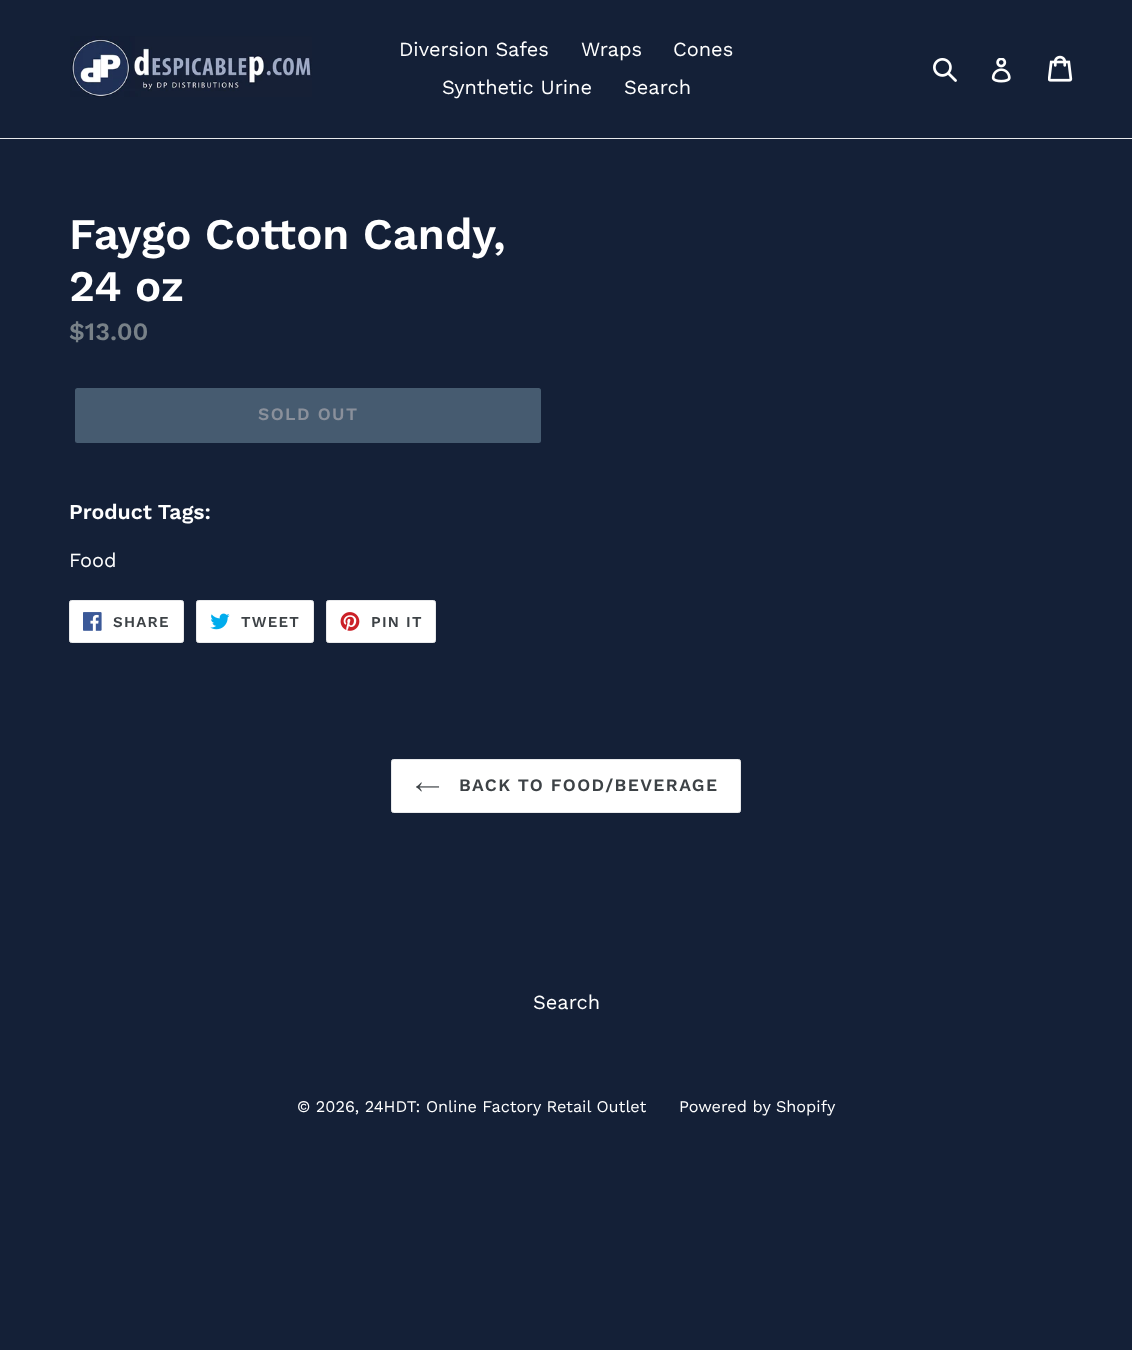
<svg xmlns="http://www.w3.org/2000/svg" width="1132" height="1350">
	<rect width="100%" height="100%" fill="#142037" />
	<rect x="0" y="138" width="1132" height="1" fill="#E8E9EB" />
	<image x="70" y="36" width="242" height="61" href="assets/img1.png" />
	<g font-family="Work Sans" font-size="20" fill="#FFFFFF">
		<text x="399" y="56">Diversion Safes</text>
		<text x="581" y="56">Wraps</text>
		<text x="673" y="56">Cones</text>
		<text x="442" y="94">Synthetic Urine</text>
		<text x="624" y="94">Search</text>
	</g>
	<image x="933" y="58" width="24" height="24" href="assets/img2.png" />
	<image x="991" y="58" width="20" height="25" href="assets/img3.png" />
	<image x="1048" y="55" width="25" height="27" href="assets/img4.png" />
	<g font-family="Work Sans" font-size="43.75" font-weight="600" fill="#FFFFFF">
		<text x="69" y="249">Faygo Cotton Candy,</text>
		<text x="69" y="301">24 oz</text>
	</g>
	<text x="69" y="340" font-family="Work Sans" font-size="25" font-weight="600" fill="#788188">$13.00</text>
	<rect x="75" y="388" width="466" height="55" rx="2.5" fill="#465B70" />
	<text x="258" y="420" font-family="Work Sans" font-size="17.5" font-weight="600" letter-spacing="1.4" fill="#8A909B">SOLD OUT</text>
	<text x="69" y="519" font-family="Work Sans" font-size="21.25" font-weight="600" fill="#FFFFFF">Product Tags:</text>
	<text x="69" y="567" font-family="Work Sans" font-size="20" fill="#FFFFFF">Food</text>
	<rect x="69.5" y="600.5" width="114" height="42" rx="2" fill="#FFFFFF" stroke="#E8E9EB" />
	<image x="83" y="612" width="19" height="19" href="assets/img5.png" />
	<text x="113" y="627" font-family="Work Sans" font-size="15" font-weight="600" letter-spacing="1.25" fill="#3D4246">SHARE</text>
	<rect x="196.5" y="600.5" width="117" height="42" rx="2" fill="#FFFFFF" stroke="#E8E9EB" />
	<image x="210" y="613" width="20" height="17" href="assets/img6.png" />
	<text x="241" y="627" font-family="Work Sans" font-size="15" font-weight="600" letter-spacing="1.25" fill="#3D4246">TWEET</text>
	<rect x="326.5" y="600.5" width="109" height="42" rx="2" fill="#FFFFFF" stroke="#E8E9EB" />
	<image x="340" y="612" width="20" height="19" href="assets/img7.png" />
	<text x="371" y="627" font-family="Work Sans" font-size="15" font-weight="600" letter-spacing="1.25" fill="#3D4246">PIN IT</text>
	<rect x="391.5" y="759.5" width="349" height="53" rx="2" fill="#FFFFFF" stroke="#E8E9EB" />
	<image x="416" y="782" width="24" height="10" href="assets/img8.png" />
	<text x="459" y="791" font-family="Work Sans" font-size="17.5" font-weight="600" letter-spacing="1.4" fill="#3D4246">BACK TO FOOD/BEVERAGE</text>
	<text x="533" y="1009" font-family="Work Sans" font-size="20" fill="#FFFFFF">Search</text>
	<g font-family="Work Sans" font-size="16.25" fill="#FFFFFF">
		<text x="297" y="1112">© 2026, 24HDT: Online Factory Retail Outlet</text>
		<text x="679" y="1112">Powered by Shopify</text>
	</g>
</svg>
